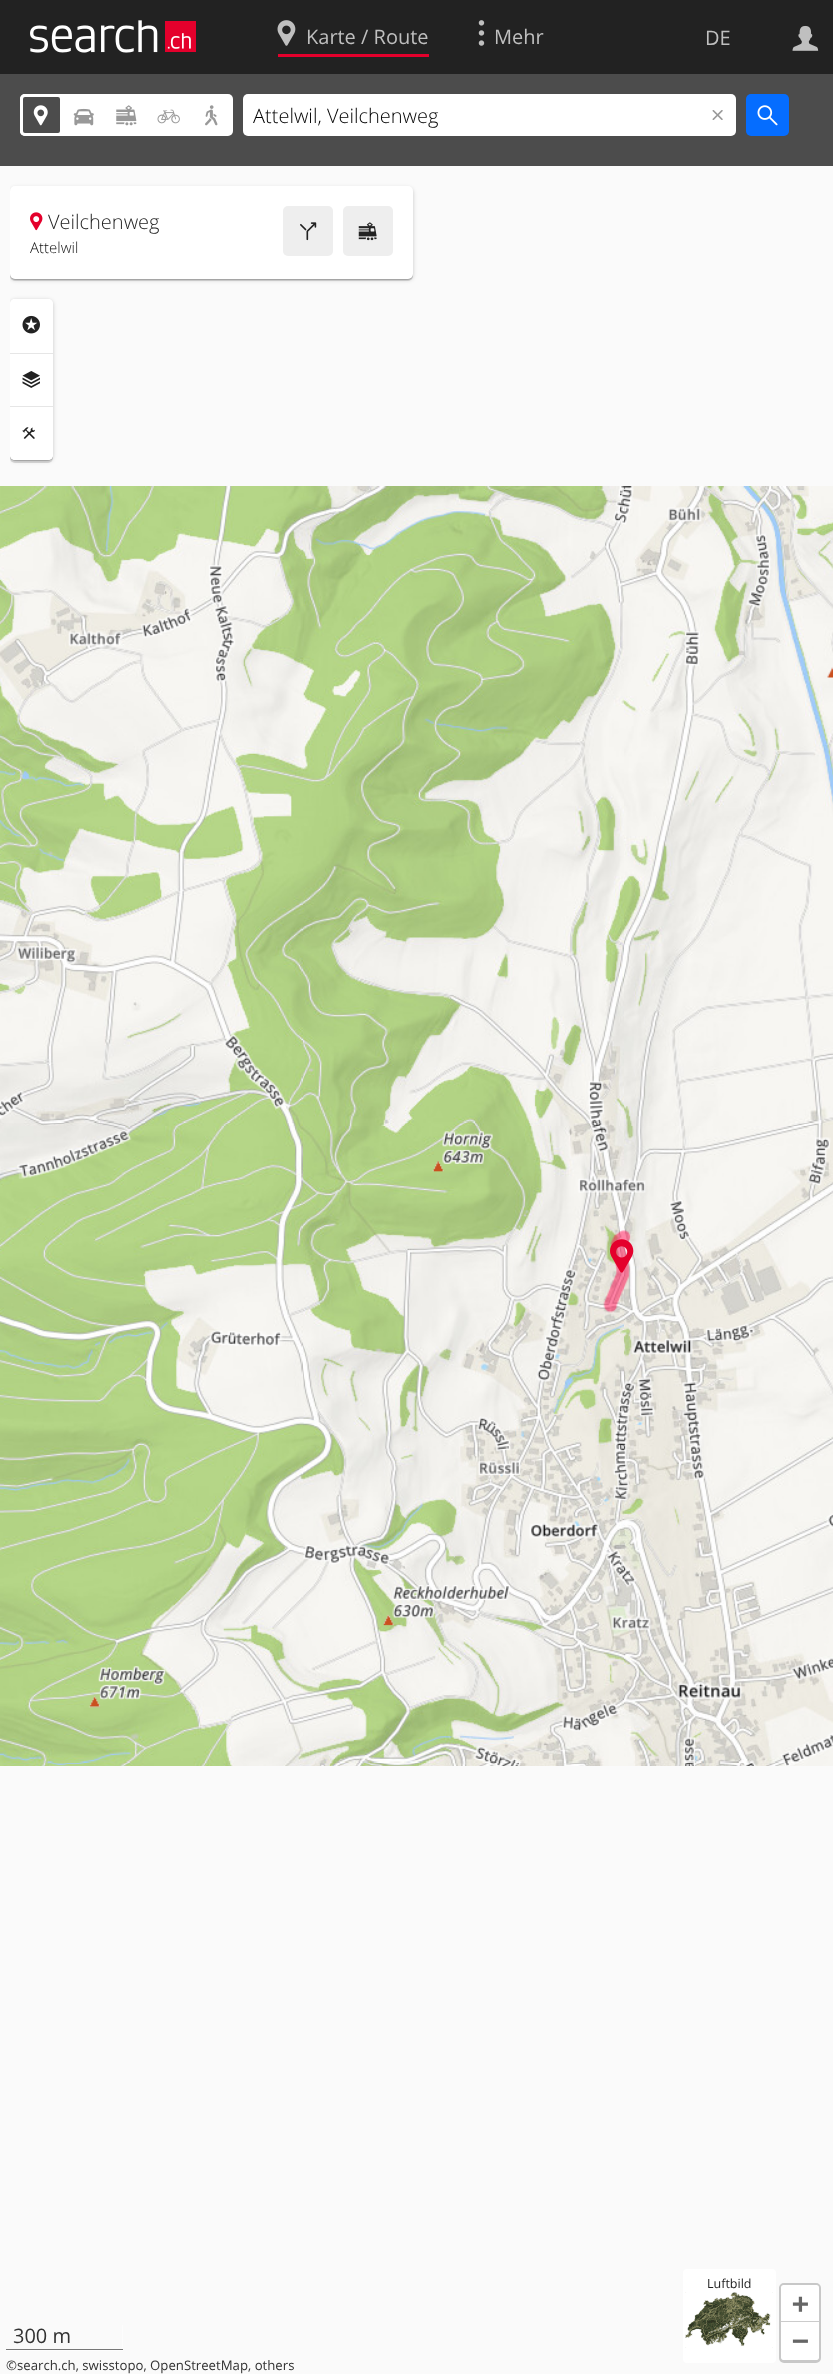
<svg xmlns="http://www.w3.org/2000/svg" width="833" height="2374">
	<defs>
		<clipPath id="clip1"><rect x="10" y="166" width="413" height="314" /></clipPath>
		<clipPath id="clip2"><rect x="10" y="299" width="43" height="161" rx="4" /></clipPath>
	</defs>
	<rect width="100%" height="100%" fill="#FAFAFA" />
	<rect x="0" y="0" width="833" height="74" fill="#222222" />
	<image x="30" y="20" width="166" height="33" href="assets/img1.png" />
	<rect x="278" y="54" width="151" height="3" fill="#E4002C" />
	<image x="277" y="20" width="19" height="26" href="assets/img2.png" />
	<text x="306" y="44" font-family="Open Sans" font-size="20" fill="#BFBFBF">Karte / Route</text>
	<image x="478" y="20" width="7" height="26" href="assets/img3.png" />
	<g font-family="Open Sans" font-size="20" fill="#BFBFBF">
		<text x="494" y="44">Mehr</text>
		<text x="705" y="45">DE</text>
	</g>
	<image x="792" y="25" width="27" height="26" href="assets/img4.png" />
	<rect x="0" y="74" width="833" height="92" fill="#4C4C4C" />
	<rect x="20" y="94" width="213" height="42" rx="5" fill="#FFFFFF" />
	<rect x="21.5" y="95.5" width="40" height="39" rx="3.5" fill="#4C4C4C" stroke="#FFFFFF" stroke-width="3" />
	<image x="33" y="105" width="15" height="21" href="assets/img5.png" />
	<image x="73" y="108" width="21" height="18" href="assets/img6.png" />
	<image x="116" y="105" width="21" height="21" href="assets/img7.png" />
	<image x="157" y="109" width="23" height="15" href="assets/img8.png" />
	<image x="205" y="105" width="13" height="21" href="assets/img9.png" />
	<rect x="243" y="94" width="493" height="42" rx="5" fill="#FFFFFF" />
	<text x="253" y="123" font-family="Open Sans" font-size="20" font-weight="300" fill="#000000">Attelwil, Veilchenweg</text>
	<image x="712" y="110" width="11" height="10" href="assets/img10.png" />
	<rect x="746" y="94" width="43" height="42" rx="5" fill="#056DFF" />
	<image x="757" y="105" width="21" height="21" href="assets/img11.png" />
	<g clip-path="url(#clip1)">
		<rect x="10" y="188" width="403" height="92" rx="5" fill="#000000" fill-opacity="0.2" filter="blur(2px)" />
	</g>
	<rect x="10" y="189" width="403" height="92" rx="5" fill="#000000" fill-opacity="0.12" filter="blur(0.5px)" />
	<rect x="10" y="188" width="403" height="92" rx="5" fill="#000000" fill-opacity="0.14" filter="blur(0.5px)" />
	<rect x="10" y="186" width="403" height="93" rx="5" fill="#FFFFFF" />
	<image x="30" y="212" width="13" height="19" href="assets/img12.png" />
	<text x="48" y="229" font-family="Open Sans" font-size="20" font-weight="300" fill="#222222">Veilchenweg</text>
	<rect x="283" y="206" width="50" height="50" rx="5" fill="#EEEEEE" />
	<image x="300" y="222" width="17" height="19" href="assets/img13.png" />
	<rect x="343" y="206" width="50" height="50" rx="5" fill="#EEEEEE" />
	<image x="358" y="222" width="19" height="19" href="assets/img14.png" />
	<text x="30" y="253" font-family="Open Sans" font-size="15" font-weight="300" fill="#111111">Attelwil</text>
	<g clip-path="url(#clip1)">
		<rect x="10" y="300" width="43" height="161" rx="5" fill="#000000" fill-opacity="0.2" filter="blur(2px)" />
	</g>
	<rect x="10" y="301" width="43" height="162" rx="5" fill="#000000" fill-opacity="0.12" filter="blur(0.5px)" />
	<rect x="10" y="300" width="43" height="161" rx="5" fill="#000000" fill-opacity="0.14" filter="blur(0.5px)" />
	<rect x="10" y="299" width="43" height="161" rx="5" fill="#FFFFFF" />
	<g clip-path="url(#clip2)">
		<path d="M15 299H48C51 299 53 301 53 304V354H10V304C10 301 12 299 15 299Z" fill="#FFFFFF" />
	</g>
	<rect x="10" y="353" width="43" height="1" fill="#E6E6E6" />
	<image x="22" y="315" width="18" height="19" href="assets/img15.png" />
	<rect x="10" y="406" width="43" height="1" fill="#E6E6E6" />
	<image x="22" y="371" width="18" height="17" href="assets/img16.png" />
	<g clip-path="url(#clip2)">
		<path d="M10 408H53V455C53 458 51 460 48 460H15C12 460 10 458 10 455Z" fill="#FFFFFF" />
	</g>
	<image x="22" y="427" width="13" height="12" href="assets/img17.png" />
	<rect x="683" y="2269" width="93" height="94" rx="4" fill="#FFFFFF" />
	<image x="685" y="2292" width="88" height="56" href="assets/img18.png" />
	<text x="707" y="2288" font-family="Open Sans" font-size="12.5" fill="#222222">Luftbild</text>
	<image x="0" y="486" width="624" height="640" href="assets/img19.png" />
	<image x="624" y="486" width="209" height="640" href="assets/img20.png" />
	<image x="0" y="1126" width="624" height="640" href="assets/img21.png" />
	<image x="624" y="1126" width="209" height="640" href="assets/img22.png" />
	<image x="0" y="486" width="624" height="640" href="assets/img23.png" />
	<image x="624" y="486" width="209" height="192" href="assets/img24.png" />
	<image x="17" y="1126" width="607" height="640" href="assets/img25.png" />
	<image x="624" y="1137" width="209" height="629" href="assets/img26.png" />
	<image x="610" y="1239" width="24" height="34" href="assets/img27.png" />
	<rect x="780.5" y="2284.5" width="39" height="77" rx="3.5" fill="none" stroke="#C8C8C8" stroke-width="3" />
	<path d="M783.5 2285H816.5C818 2285 819 2286 819 2287.5V2323H781V2287.5C781 2286 782 2285 783.5 2285Z" fill="#FFFFFF" />
	<rect x="781" y="2321" width="38" height="1" fill="#CCCCCC" />
	<text x="792" y="2313" font-family="DejaVu Sans Mono" font-size="28" font-weight="700" fill="#666666">+</text>
	<path d="M781 2323H819V2357.5C819 2359 818 2360 816.5 2360H783.5C782 2360 781 2359 781 2357.5Z" fill="#FFFFFF" />
	<text x="792" y="2350" font-family="DejaVu Sans Mono" font-size="28" font-weight="700" fill="#666666">−</text>
	<path d="M6 2325V2351H123V2325H122V2350H6Z" fill="#FDFDFD" />
	<rect x="6" y="2349" width="117" height="1" fill="#777777" />
	<text x="13" y="2343" font-family="Open Sans" font-size="20" fill="#333333">300 m</text>
	<text x="6" y="2370" font-family="Open Sans" font-size="13.2" fill="#333333">©search.ch, swisstopo, OpenStreetMap, others</text>
</svg>
